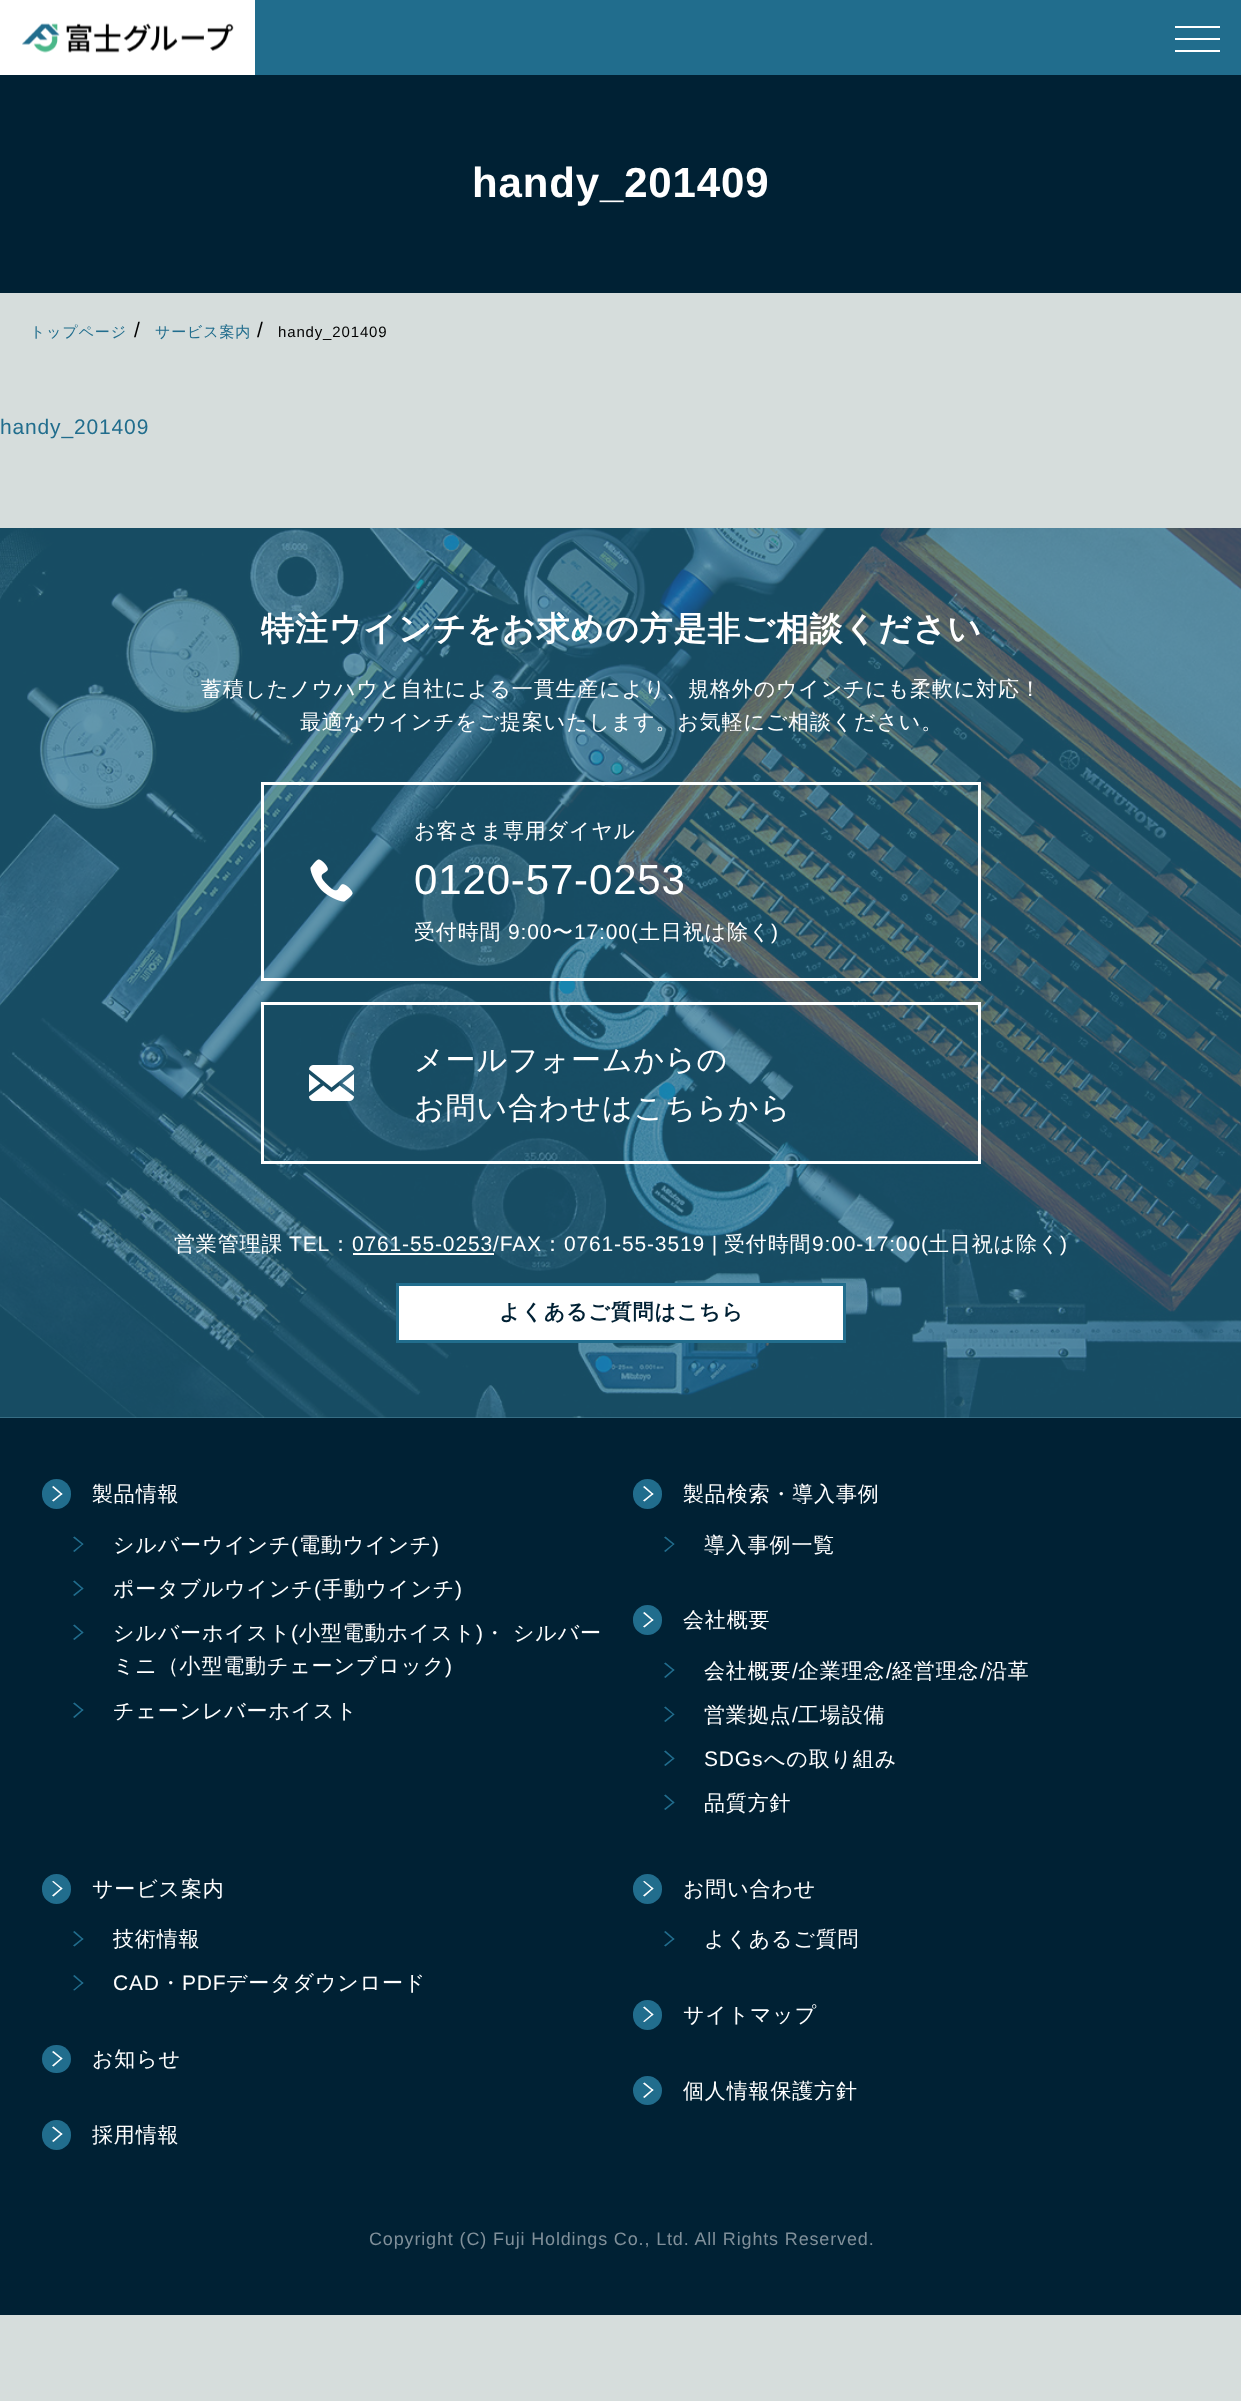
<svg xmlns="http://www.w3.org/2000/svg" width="1241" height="2401">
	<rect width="100%" height="100%" fill="#D6DDDC" />
	<rect x="0" y="1417" width="1241" height="1" fill="#578FA5" />
	<rect x="255" y="0" width="986" height="75" fill="#216D8D" />
	<rect x="0" y="0" width="255" height="75" fill="#FFFFFF" />
	<image x="22" y="23" width="212" height="30" href="assets/img1.png" />
	<rect x="1175" y="26" width="45" height="2" fill="#FFFFFF" />
	<rect x="1175" y="38" width="45" height="2" fill="#FFFFFF" />
	<rect x="1175" y="50" width="45" height="2" fill="#FFFFFF" />
	<rect x="0" y="75" width="1241" height="218" fill="#002134" />
	<text x="472" y="197" font-family="Liberation Sans" font-size="42" font-weight="700" letter-spacing="0.85" fill="#FFFFFF">handy_201409</text>
	<text x="30" y="337" font-family="WenQuanYi Zen Hei" font-size="15" font-weight="500" letter-spacing="0.85" fill="#216D8D">トップページ</text>
	<text x="134" y="337" font-family="Liberation Sans" font-size="21" letter-spacing="0.85" fill="#000000">/</text>
	<text x="155" y="337" font-family="WenQuanYi Zen Hei" font-size="15" font-weight="500" letter-spacing="0.85" fill="#216D8D">サービス案内</text>
	<text x="257" y="337" font-family="Liberation Sans" font-size="21" letter-spacing="0.85" fill="#000000">/</text>
	<text x="278" y="337" font-family="Liberation Sans" font-size="15" letter-spacing="0.85" fill="#000000">handy_201409</text>
	<text x="0" y="434" font-family="Liberation Sans" font-size="21" letter-spacing="0.85" fill="#216D8D">handy_201409</text>
	<image x="0" y="528" width="1241" height="890" href="assets/img2.png" />
	<text x="261" y="640" font-family="WenQuanYi Zen Hei" font-size="33" font-weight="700" letter-spacing="0.85" fill="#FFFFFF">特注ウインチをお求めの方是非ご相談ください</text>
	<g font-family="WenQuanYi Zen Hei" font-size="21" font-weight="500" letter-spacing="0.85" fill="#FFFFFF">
		<text x="201" y="696">蓄積したノウハウと自社による一貫生産により、規格外のウインチにも柔軟に対応！</text>
		<text x="300" y="729">最適なウインチをご提案いたします。お気軽にご相談ください。</text>
	</g>
	<rect x="262.5" y="783.5" width="717" height="196" fill="none" stroke="#FFFFFF" stroke-width="3" />
	<text x="414" y="838" font-family="WenQuanYi Zen Hei" font-size="21" font-weight="500" letter-spacing="0.85" fill="#FFFFFF">お客さま専用ダイヤル</text>
	<image x="310" y="859" width="43" height="43" href="assets/img3.png" />
	<text x="414" y="894" font-family="Liberation Sans" font-size="42" letter-spacing="0.85" fill="#FFFFFF">0120-57-0253</text>
	<text x="414" y="939" font-family="WenQuanYi Zen Hei" font-size="21" font-weight="500" letter-spacing="0.85" fill="#FFFFFF">受付時間</text>
	<text x="508" y="939" font-family="Liberation Sans" font-size="21" letter-spacing="0.85" fill="#FFFFFF">9:00</text>
	<text x="552" y="939" font-family="WenQuanYi Zen Hei" font-size="21" font-weight="500" letter-spacing="0.85" fill="#FFFFFF">〜</text>
	<text x="574" y="939" font-family="Liberation Sans" font-size="21" letter-spacing="0.85" fill="#FFFFFF">17:00(</text>
	<text x="639" y="939" font-family="WenQuanYi Zen Hei" font-size="21" font-weight="500" letter-spacing="0.85" fill="#FFFFFF">土日祝は除く</text>
	<text x="771" y="939" font-family="Liberation Sans" font-size="21" letter-spacing="0.85" fill="#FFFFFF">)</text>
	<rect x="262.5" y="1003.5" width="717" height="159" fill="none" stroke="#FFFFFF" stroke-width="3" />
	<text x="414" y="1070" font-family="WenQuanYi Zen Hei" font-size="30" font-weight="500" letter-spacing="0.85" fill="#FFFFFF">メールフォームからの</text>
	<image x="309" y="1065" width="45" height="36" href="assets/img4.png" />
	<text x="414" y="1118" font-family="WenQuanYi Zen Hei" font-size="30" font-weight="500" letter-spacing="0.85" fill="#FFFFFF">お問い合わせはこちらから</text>
	<text x="174" y="1251" font-family="WenQuanYi Zen Hei" font-size="21" font-weight="500" letter-spacing="0.85" fill="#FFFFFF">営業管理課</text>
	<text x="289" y="1251" font-family="Liberation Sans" font-size="21" letter-spacing="0.85" fill="#FFFFFF">TEL</text>
	<text x="330" y="1251" font-family="WenQuanYi Zen Hei" font-size="21" font-weight="500" letter-spacing="0.85" fill="#FFFFFF">：</text>
	<text x="352" y="1251" font-family="Liberation Sans" font-size="21" letter-spacing="0.85" fill="#FFFFFF">0761-55-0253/FAX</text>
	<rect x="353" y="1253" width="141" height="2" fill="#FFFFFF" />
	<text x="542" y="1251" font-family="WenQuanYi Zen Hei" font-size="21" font-weight="500" letter-spacing="0.85" fill="#FFFFFF">：</text>
	<text x="564" y="1251" font-family="Liberation Sans" font-size="21" letter-spacing="0.85" fill="#FFFFFF">0761-55-3519 |</text>
	<text x="724" y="1251" font-family="WenQuanYi Zen Hei" font-size="21" font-weight="500" letter-spacing="0.85" fill="#FFFFFF">受付時間</text>
	<text x="812" y="1251" font-family="Liberation Sans" font-size="21" letter-spacing="0.85" fill="#FFFFFF">9:00-17:00(</text>
	<text x="928" y="1251" font-family="WenQuanYi Zen Hei" font-size="21" font-weight="500" letter-spacing="0.85" fill="#FFFFFF">土日祝は除く</text>
	<text x="1060" y="1251" font-family="Liberation Sans" font-size="21" letter-spacing="0.85" fill="#FFFFFF">)</text>
	<rect x="397.5" y="1284.5" width="447" height="57" fill="#FFFFFF" stroke="#216D8D" stroke-width="3" />
	<text x="499" y="1319" font-family="WenQuanYi Zen Hei" font-size="21" font-weight="700" letter-spacing="0.85" fill="#002134">よくあるご質問はこちら</text>
	<rect x="0" y="1418" width="1241" height="897" fill="#002134" />
	<rect x="42" y="1479" width="29" height="30" rx="14.5" fill="#216D8D" />
	<text x="92" y="1501" font-family="WenQuanYi Zen Hei" font-size="21" font-weight="500" letter-spacing="0.85" fill="#FFFFFF">製品情報</text>
	<path d="M52 1487L53.5 1486L62.5 1494L61.5 1495Z" fill="#FFFFFF" />
	<path d="M52 1500.5L61.5 1493L62.5 1494L53.5 1501.5Z" fill="#FFFFFF" />
	<path d="M73 1537.5L74.5 1536.5L83.5 1544L82.5 1545Z" fill="#216D8D" />
	<path d="M73 1551L82.5 1543.5L83.5 1544L74.5 1552ZM73 1581.5L74.5 1580.5L83.5 1588.5L82.5 1589.5Z" fill="#216D8D" />
	<text x="113" y="1552" font-family="WenQuanYi Zen Hei" font-size="21" font-weight="500" letter-spacing="0.85" fill="#FFFFFF">シルバーウインチ</text>
	<text x="291" y="1552" font-family="Liberation Sans" font-size="21" letter-spacing="0.85" fill="#FFFFFF">(</text>
	<text x="299" y="1552" font-family="WenQuanYi Zen Hei" font-size="21" font-weight="500" letter-spacing="0.85" fill="#FFFFFF">電動ウインチ</text>
	<text x="432" y="1552" font-family="Liberation Sans" font-size="21" letter-spacing="0.85" fill="#FFFFFF">)</text>
	<path d="M73 1595L82.5 1587.5L83.5 1588.5L74.5 1596ZM73 1625.5L74.5 1624.5L83.5 1632.5L82.5 1633.5Z" fill="#216D8D" />
	<text x="113" y="1596" font-family="WenQuanYi Zen Hei" font-size="21" font-weight="500" letter-spacing="0.85" fill="#FFFFFF">ポータブルウインチ</text>
	<text x="314" y="1596" font-family="Liberation Sans" font-size="21" letter-spacing="0.85" fill="#FFFFFF">(</text>
	<text x="322" y="1596" font-family="WenQuanYi Zen Hei" font-size="21" font-weight="500" letter-spacing="0.85" fill="#FFFFFF">手動ウインチ</text>
	<text x="455" y="1596" font-family="Liberation Sans" font-size="21" letter-spacing="0.85" fill="#FFFFFF">)</text>
	<path d="M73 1639L82.5 1631.5L83.5 1632.5L74.5 1640Z" fill="#216D8D" />
	<text x="113" y="1640" font-family="WenQuanYi Zen Hei" font-size="21" font-weight="500" letter-spacing="0.85" fill="#FFFFFF">シルバーホイスト</text>
	<text x="291" y="1640" font-family="Liberation Sans" font-size="21" letter-spacing="0.85" fill="#FFFFFF">(</text>
	<text x="299" y="1640" font-family="WenQuanYi Zen Hei" font-size="21" font-weight="500" letter-spacing="0.85" fill="#FFFFFF">小型電動ホイスト</text>
	<text x="476" y="1640" font-family="Liberation Sans" font-size="21" letter-spacing="0.85" fill="#FFFFFF">)</text>
	<g font-family="WenQuanYi Zen Hei" font-size="21" font-weight="500" letter-spacing="0.85" fill="#FFFFFF">
		<text x="484" y="1640">・ シルバー</text>
		<text x="113" y="1673">ミニ（小型電動チェーンブロック</text>
	</g>
	<text x="445" y="1673" font-family="Liberation Sans" font-size="21" letter-spacing="0.85" fill="#FFFFFF">)</text>
	<path d="M73 1703.5L74.5 1702.5L83.5 1710L82.5 1711Z" fill="#216D8D" />
	<path d="M73 1717L82.5 1709L83.5 1710L74.5 1718Z" fill="#216D8D" />
	<text x="113" y="1718" font-family="WenQuanYi Zen Hei" font-size="21" font-weight="500" letter-spacing="0.85" fill="#FFFFFF">チェーンレバーホイスト</text>
	<rect x="633" y="1479" width="29" height="30" rx="14.5" fill="#216D8D" />
	<text x="683" y="1501" font-family="WenQuanYi Zen Hei" font-size="21" font-weight="500" letter-spacing="0.85" fill="#FFFFFF">製品検索・導入事例</text>
	<path d="M643 1487L644.5 1486L653.5 1494L652.5 1495Z" fill="#FFFFFF" />
	<path d="M643 1500.5L652.5 1493L653.5 1494L644.5 1501.5Z" fill="#FFFFFF" />
	<path d="M664 1537.5L665.5 1536.5L674.5 1544L673.5 1545Z" fill="#216D8D" />
	<path d="M664 1551L673.5 1543.5L674.5 1544L665.5 1552Z" fill="#216D8D" />
	<text x="704" y="1552" font-family="WenQuanYi Zen Hei" font-size="21" font-weight="500" letter-spacing="0.85" fill="#FFFFFF">導入事例一覧</text>
	<rect x="633" y="1605" width="29" height="30" rx="14.5" fill="#216D8D" />
	<text x="683" y="1627" font-family="WenQuanYi Zen Hei" font-size="21" font-weight="500" letter-spacing="0.85" fill="#FFFFFF">会社概要</text>
	<path d="M643 1613L644.5 1612L653.5 1620L652.5 1621Z" fill="#FFFFFF" />
	<path d="M643 1626.5L652.5 1619L653.5 1620L644.5 1627.5Z" fill="#FFFFFF" />
	<path d="M664 1663.5L665.5 1662.5L674.5 1670L673.5 1671Z" fill="#216D8D" />
	<path d="M664 1677L673.5 1669L674.5 1670L665.5 1678ZM664 1707.5L665.5 1706.5L674.5 1714.5L673.5 1715Z" fill="#216D8D" />
	<text x="704" y="1678" font-family="WenQuanYi Zen Hei" font-size="21" font-weight="500" letter-spacing="0.85" fill="#FFFFFF">会社概要</text>
	<text x="792" y="1678" font-family="Liberation Sans" font-size="21" letter-spacing="0.85" fill="#FFFFFF">/</text>
	<text x="798" y="1678" font-family="WenQuanYi Zen Hei" font-size="21" font-weight="500" letter-spacing="0.85" fill="#FFFFFF">企業理念</text>
	<text x="886" y="1678" font-family="Liberation Sans" font-size="21" letter-spacing="0.85" fill="#FFFFFF">/</text>
	<text x="892" y="1678" font-family="WenQuanYi Zen Hei" font-size="21" font-weight="500" letter-spacing="0.85" fill="#FFFFFF">経営理念</text>
	<text x="980" y="1678" font-family="Liberation Sans" font-size="21" letter-spacing="0.85" fill="#FFFFFF">/</text>
	<text x="986" y="1678" font-family="WenQuanYi Zen Hei" font-size="21" font-weight="500" letter-spacing="0.85" fill="#FFFFFF">沿革</text>
	<path d="M664 1721L673.5 1713.5L674.5 1714.5L665.5 1722ZM664 1751.5L665.5 1750.5L674.5 1758.5L673.5 1759.5Z" fill="#216D8D" />
	<text x="704" y="1722" font-family="WenQuanYi Zen Hei" font-size="21" font-weight="500" letter-spacing="0.85" fill="#FFFFFF">営業拠点</text>
	<text x="792" y="1722" font-family="Liberation Sans" font-size="21" letter-spacing="0.85" fill="#FFFFFF">/</text>
	<text x="798" y="1722" font-family="WenQuanYi Zen Hei" font-size="21" font-weight="500" letter-spacing="0.85" fill="#FFFFFF">工場設備</text>
	<path d="M664 1765L673.5 1757.5L674.5 1758.5L665.5 1766ZM664 1795.5L665.5 1794.5L674.5 1802.5L673.5 1803.5Z" fill="#216D8D" />
	<text x="704" y="1766" font-family="Liberation Sans" font-size="21" letter-spacing="0.85" fill="#FFFFFF">SDGs</text>
	<text x="764" y="1766" font-family="WenQuanYi Zen Hei" font-size="21" font-weight="500" letter-spacing="0.85" fill="#FFFFFF">への取り組み</text>
	<path d="M664 1809L673.5 1801.5L674.5 1802.5L665.5 1810Z" fill="#216D8D" />
	<text x="704" y="1810" font-family="WenQuanYi Zen Hei" font-size="21" font-weight="500" letter-spacing="0.85" fill="#FFFFFF">品質方針</text>
	<rect x="42" y="1874" width="29" height="30" rx="14.5" fill="#216D8D" />
	<text x="92" y="1896" font-family="WenQuanYi Zen Hei" font-size="21" font-weight="500" letter-spacing="0.85" fill="#FFFFFF">サービス案内</text>
	<path d="M52 1881.5L53.5 1881L62.5 1888.5L61.5 1889.5Z" fill="#FFFFFF" />
	<path d="M52 1895.5L61.5 1887.5L62.5 1888.5L53.5 1896.5Z" fill="#FFFFFF" />
	<path d="M73 1932L74.5 1931L83.5 1939L82.5 1940Z" fill="#216D8D" />
	<path d="M73 1945.5L82.5 1938L83.5 1939L74.5 1946.5ZM73 1976L74.5 1975L83.5 1983L82.5 1984Z" fill="#216D8D" />
	<text x="113" y="1946" font-family="WenQuanYi Zen Hei" font-size="21" font-weight="500" letter-spacing="0.85" fill="#FFFFFF">技術情報</text>
	<path d="M73 1990L82.5 1982L83.5 1983L74.5 1990.5Z" fill="#216D8D" />
	<text x="113" y="1990" font-family="Liberation Sans" font-size="21" letter-spacing="0.85" fill="#FFFFFF">CAD</text>
	<text x="160" y="1990" font-family="WenQuanYi Zen Hei" font-size="21" font-weight="500" letter-spacing="0.85" fill="#FFFFFF">・</text>
	<text x="182" y="1990" font-family="Liberation Sans" font-size="21" letter-spacing="0.85" fill="#FFFFFF">PDF</text>
	<text x="226" y="1990" font-family="WenQuanYi Zen Hei" font-size="21" font-weight="500" letter-spacing="0.85" fill="#FFFFFF">データダウンロード</text>
	<rect x="42" y="2045" width="29" height="28" rx="14" fill="#216D8D" />
	<text x="92" y="2066" font-family="WenQuanYi Zen Hei" font-size="21" font-weight="500" letter-spacing="0.85" fill="#FFFFFF">お知らせ</text>
	<path d="M52 2052L53.5 2051L62.5 2058.5L61.5 2059.5Z" fill="#FFFFFF" />
	<path d="M52 2065.5L61.5 2057.5L62.5 2058.5L53.5 2066.5Z" fill="#FFFFFF" />
	<rect x="42" y="2120" width="29" height="30" rx="14.5" fill="#216D8D" />
	<text x="92" y="2142" font-family="WenQuanYi Zen Hei" font-size="21" font-weight="500" letter-spacing="0.85" fill="#FFFFFF">採用情報</text>
	<path d="M52 2127.5L53.5 2126.5L62.5 2134L61.5 2135Z" fill="#FFFFFF" />
	<path d="M52 2141L61.5 2133L62.5 2134L53.5 2142Z" fill="#FFFFFF" />
	<rect x="633" y="1874" width="29" height="30" rx="14.5" fill="#216D8D" />
	<text x="683" y="1896" font-family="WenQuanYi Zen Hei" font-size="21" font-weight="500" letter-spacing="0.85" fill="#FFFFFF">お問い合わせ</text>
	<path d="M643 1881.5L644.5 1881L653.5 1888.5L652.5 1889.5Z" fill="#FFFFFF" />
	<path d="M643 1895.5L652.5 1887.5L653.5 1888.5L644.5 1896.5Z" fill="#FFFFFF" />
	<path d="M664 1932L665.5 1931L674.5 1939L673.5 1940Z" fill="#216D8D" />
	<path d="M664 1945.5L673.5 1938L674.5 1939L665.5 1946.5Z" fill="#216D8D" />
	<text x="704" y="1946" font-family="WenQuanYi Zen Hei" font-size="21" font-weight="500" letter-spacing="0.85" fill="#FFFFFF">よくあるご質問</text>
	<rect x="633" y="2000" width="29" height="30" rx="14.5" fill="#216D8D" />
	<text x="683" y="2022" font-family="WenQuanYi Zen Hei" font-size="21" font-weight="500" letter-spacing="0.85" fill="#FFFFFF">サイトマップ</text>
	<path d="M643 2007.5L644.5 2006.5L653.5 2014.5L652.5 2015.5Z" fill="#FFFFFF" />
	<path d="M643 2021.5L652.5 2013.5L653.5 2014.5L644.5 2022Z" fill="#FFFFFF" />
	<circle cx="647.5" cy="2090.5" r="14.5" fill="#216D8D" />
	<text x="683" y="2098" font-family="WenQuanYi Zen Hei" font-size="21" font-weight="500" letter-spacing="0.85" fill="#FFFFFF">個人情報保護方針</text>
	<path d="M643 2083.5L644.5 2082.5L653.5 2090L652.5 2091Z" fill="#FFFFFF" />
	<path d="M643 2097L652.5 2089L653.5 2090L644.5 2098Z" fill="#FFFFFF" />
	<text x="369" y="2245" font-family="Liberation Sans" font-size="18" letter-spacing="0.85" fill="#80909A">Copyright (C) Fuji Holdings Co., Ltd. All Rights Reserved.</text>
</svg>
